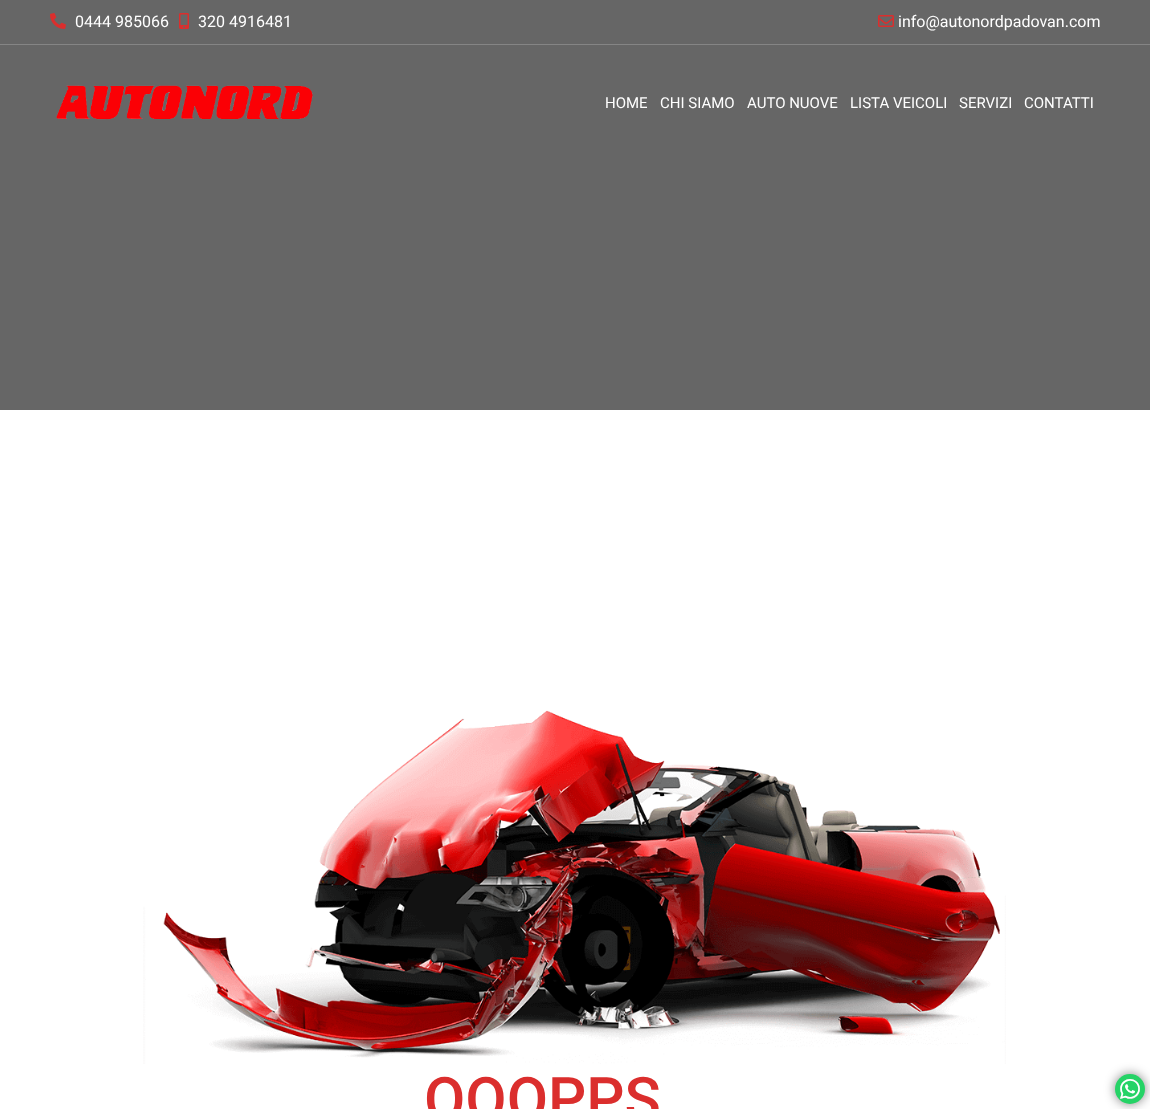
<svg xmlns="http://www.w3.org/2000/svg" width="1150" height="1109">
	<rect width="100%" height="100%" fill="#FFFFFF" />
	<rect x="0" y="0" width="1150" height="410" fill="#666666" />
	<rect x="0" y="44" width="1150" height="1" fill="#858585" />
	<image x="50" y="13" width="16" height="16" href="assets/img1.png" />
	<text x="75" y="27" font-family="Roboto" font-size="16" fill="#FFFFFF">0444 985066</text>
	<image x="179" y="13" width="10" height="16" href="assets/img2.png" />
	<text x="198" y="27" font-family="Roboto" font-size="16" fill="#FFFFFF">320 4916481</text>
	<image x="878" y="15" width="16" height="12" href="assets/img3.png" />
	<text x="898" y="27" font-family="Roboto" font-size="16" fill="#FFFFFF">info@autonordpadovan.com</text>
	<image x="56" y="85" width="257" height="35" href="assets/img4.png" />
	<g font-family="Roboto" font-size="15" fill="#FFFFFF">
		<text x="605" y="108">HOME</text>
		<text x="660" y="108">CHI SIAMO</text>
		<text x="747" y="108">AUTO NUOVE</text>
		<text x="850" y="108">LISTA VEICOLI</text>
		<text x="959" y="108">SERVIZI</text>
		<text x="1024" y="108">CONTATTI</text>
	</g>
	<image x="143" y="710" width="863" height="354" href="assets/img5.png" />
	<text x="424" y="1120" font-family="Roboto" font-size="60" font-weight="500" fill="#DB2E2D">OOOPPS</text>
	<rect x="1115" y="1074" width="30" height="30" rx="15" fill="#000000" fill-opacity="0.5" filter="blur(5.5px)" />
	<circle cx="1130" cy="1089" r="15" fill="#25D366" />
	<image x="1120" y="1079" width="20" height="20" href="assets/img6.png" />
</svg>
